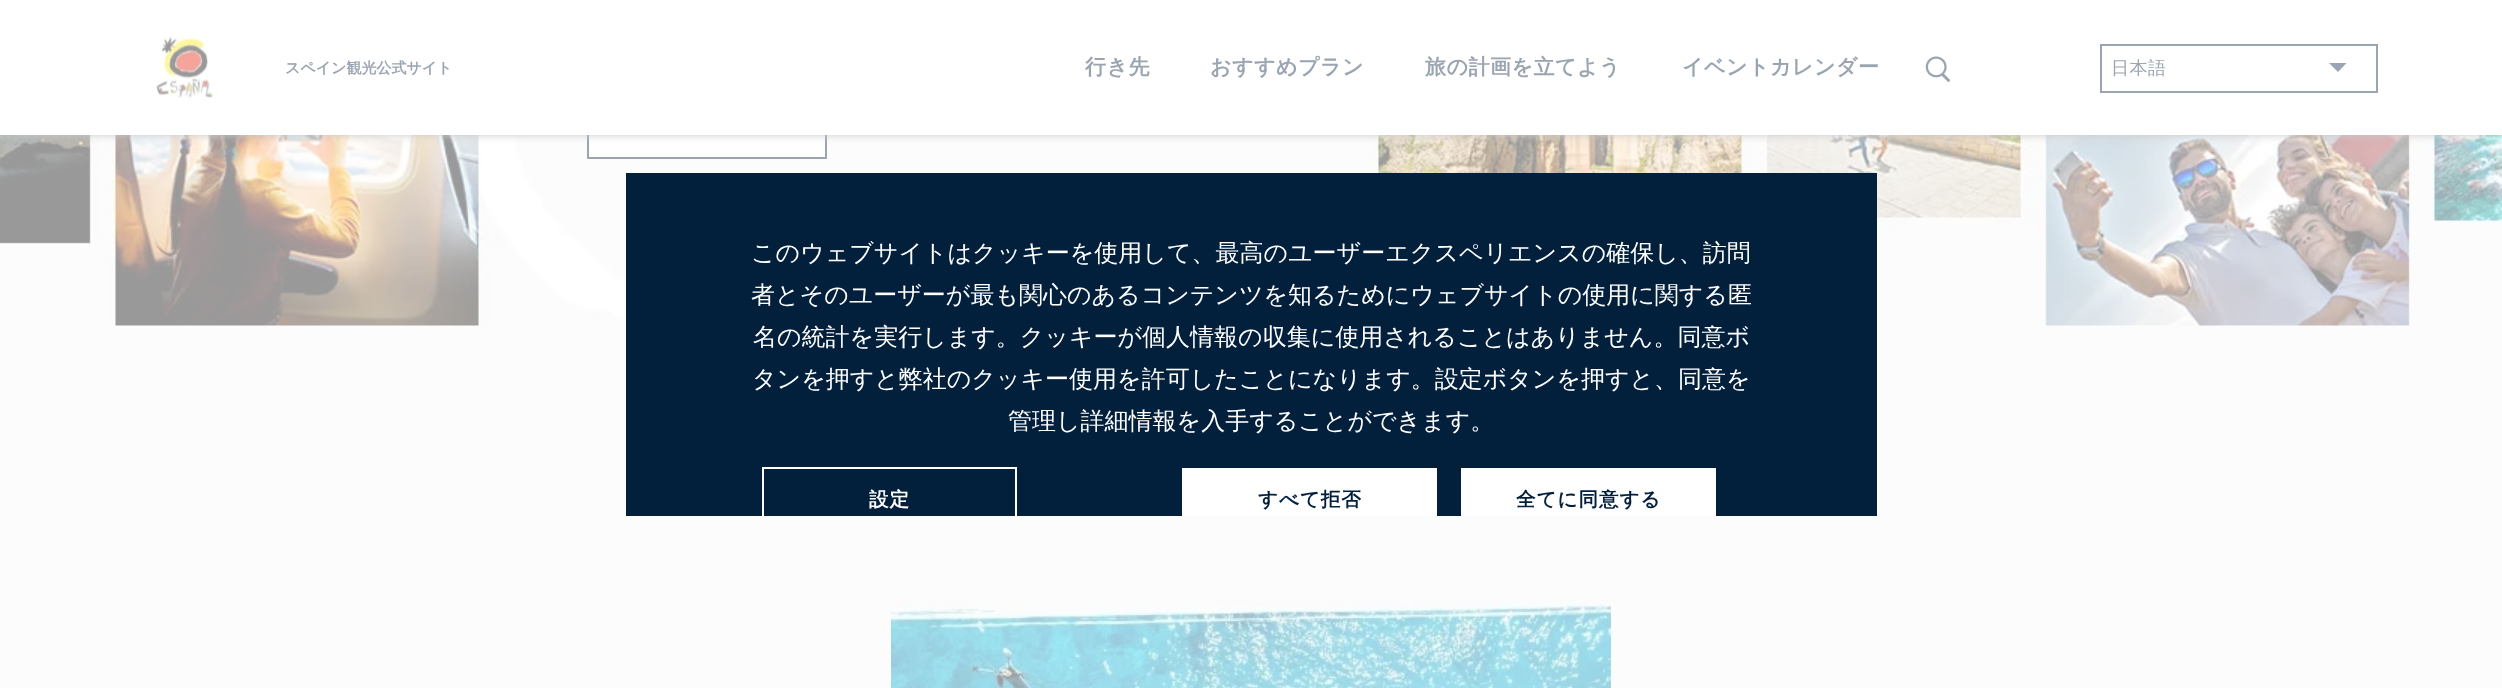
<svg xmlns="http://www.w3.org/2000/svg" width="2502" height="688">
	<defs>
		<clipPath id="clip1"><rect x="626" y="173" width="1251" height="343" /></clipPath>
	</defs>
	<rect width="100%" height="100%" fill="#FCFCFC" />
	<image x="0" y="135" width="2502" height="191" href="assets/img3.png" />
	<rect x="589" y="135" width="236" height="22" fill="#FFFFFF" />
	<rect x="588" y="99" width="238" height="59" fill="none" stroke="#9AA5B1" stroke-width="2" />
	<rect x="15" y="30" width="2472" height="105" fill="#C9C9C9" filter="blur(4.5px)" />
	<rect x="0" y="0" width="2502" height="135" fill="#FFFFFF" />
	<image x="156" y="36" width="59" height="65" href="assets/img1.png" />
	<g font-family="WenQuanYi Zen Hei" font-size="21" font-weight="700" letter-spacing="0.5" fill="#9AA5B1">
		<text x="1085" y="74">行き先</text>
		<text x="1210" y="74">おすすめプラン</text>
		<text x="1425" y="74">旅の計画を立てよう</text>
		<text x="1682" y="74">イベントカレンダー</text>
	</g>
	<rect x="2101" y="45" width="276" height="47" fill="none" stroke="#9AA5B1" stroke-width="2" />
	<text x="2111" y="74" font-family="WenQuanYi Zen Hei" font-size="18" font-weight="500" letter-spacing="0.5" fill="#9AA5B1">日本語</text>
	<path d="M2329 63L2338 72L2346.5 63Z" fill="#9AA5B1" />
	<text x="285" y="73" font-family="WenQuanYi Zen Hei" font-size="15" font-weight="700" fill="#9AA5B1">スペイン観光公式サイト</text>
	<image x="1925" y="56" width="25" height="26" href="assets/img2.png" />
	<rect x="626" y="173" width="1251" height="343" fill="#021F3C" />
	<g font-family="WenQuanYi Zen Hei" font-size="24" font-weight="500" fill="#FFFFFF">
		<text x="751" y="261">このウェブサイトはクッキーを使用して、最高のユーザーエクスペリエンスの確保し、訪問</text>
		<text x="751" y="303">者とそのユーザーが最も関心のあるコンテンツを知るためにウェブサイトの使用に関する匿</text>
		<text x="753" y="345">名の統計を実行します。クッキーが個人情報の収集に使用されることはありません。同意ボ</text>
		<text x="752" y="387">タンを押すと弊社のクッキー使用を許可したことになります。設定ボタンを押すと、同意を</text>
		<text x="1008" y="429">管理し詳細情報を入手することができます。</text>
	</g>
	<g clip-path="url(#clip1)">
		<rect x="763" y="468" width="253" height="64" fill="none" stroke="#FFFFFF" stroke-width="2" />
	</g>
	<text x="869" y="506" font-family="WenQuanYi Zen Hei" font-size="19.5" font-weight="700" letter-spacing="1" fill="#FFFFFF">設定</text>
	<rect x="1182" y="468" width="255" height="48" fill="#FFFFFF" />
	<text x="1258" y="506" font-family="WenQuanYi Zen Hei" font-size="19.5" font-weight="700" letter-spacing="1" fill="#021F3C">すべて拒否</text>
	<rect x="1461" y="468" width="255" height="48" fill="#FFFFFF" />
	<text x="1516" y="506" font-family="WenQuanYi Zen Hei" font-size="19.5" font-weight="700" letter-spacing="1" fill="#021F3C">全てに同意する</text>
	<image x="891" y="600" width="720" height="88" href="assets/img4.png" />
</svg>
